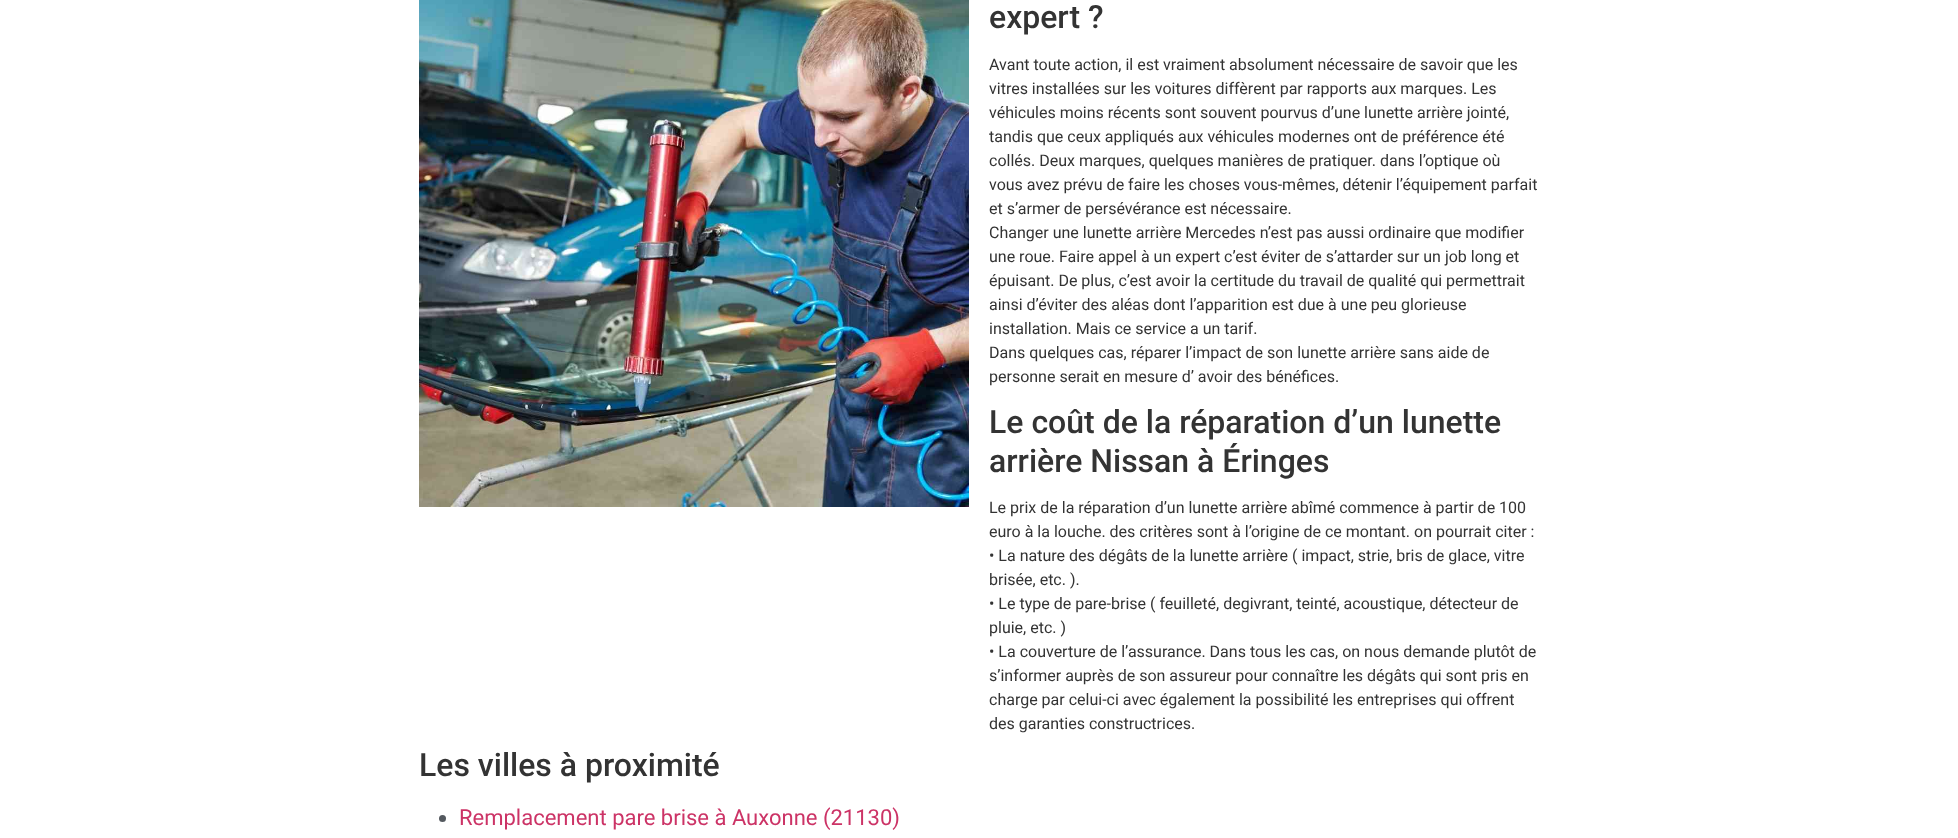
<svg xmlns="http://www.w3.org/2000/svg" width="1958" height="838">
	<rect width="100%" height="100%" fill="#FFFFFF" />
	<text x="989" y="28" font-family="Roboto" font-size="32" font-weight="500" fill="#333333">expert ?</text>
	<g font-family="Roboto" font-size="16" fill="#333333">
		<text x="989" y="70">Avant toute action, il est vraiment absolument nécessaire de savoir que les</text>
		<text x="989" y="94">vitres installées sur les voitures diffèrent par rapports aux marques. Les</text>
		<text x="989" y="118">véhicules moins récents sont souvent pourvus d’une lunette arrière jointé,</text>
		<text x="989" y="142">tandis que ceux appliqués aux véhicules modernes ont de préférence été</text>
		<text x="989" y="166">collés. Deux marques, quelques manières de pratiquer. dans l’optique où</text>
		<text x="989" y="190">vous avez prévu de faire les choses vous-mêmes, détenir l’équipement parfait</text>
		<text x="989" y="214">et s’armer de persévérance est nécessaire.</text>
		<text x="989" y="238">Changer une lunette arrière Mercedes n’est pas aussi ordinaire que modifier</text>
		<text x="989" y="262">une roue. Faire appel à un expert c’est éviter de s’attarder sur un job long et</text>
		<text x="989" y="286">épuisant. De plus, c’est avoir la certitude du travail de qualité qui permettrait</text>
		<text x="989" y="310">ainsi d’éviter des aléas dont l’apparition est due à une peu glorieuse</text>
		<text x="989" y="334">installation. Mais ce service a un tarif.</text>
		<text x="989" y="358">Dans quelques cas, réparer l’impact de son lunette arrière sans aide de</text>
		<text x="989" y="382">personne serait en mesure d’ avoir des bénéfices.</text>
	</g>
	<g font-family="Roboto" font-size="32" font-weight="500" fill="#333333">
		<text x="989" y="433">Le coût de la réparation d’un lunette</text>
		<text x="989" y="472">arrière Nissan à Éringes</text>
	</g>
	<g font-family="Roboto" font-size="16" fill="#333333">
		<text x="989" y="513">Le prix de la réparation d’un lunette arrière abîmé commence à partir de 100</text>
		<text x="989" y="537">euro à la louche. des critères sont à l’origine de ce montant. on pourrait citer :</text>
		<text x="989" y="561">• La nature des dégâts de la lunette arrière ( impact, strie, bris de glace, vitre</text>
		<text x="989" y="585">brisée, etc. ).</text>
		<text x="989" y="609">• Le type de pare-brise ( feuilleté, degivrant, teinté, acoustique, détecteur de</text>
		<text x="989" y="633">pluie, etc. )</text>
		<text x="989" y="657">• La couverture de l’assurance. Dans tous les cas, on nous demande plutôt de</text>
		<text x="989" y="681">s’informer auprès de son assureur pour connaître les dégâts qui sont pris en</text>
		<text x="989" y="705">charge par celui-ci avec également la possibilité les entreprises qui offrent</text>
		<text x="989" y="729">des garanties constructrices.</text>
	</g>
	<image x="419" y="0" width="550" height="507" href="assets/img1.png" />
	<text x="419" y="776" font-family="Roboto" font-size="32" font-weight="500" fill="#333333">Les villes à proximité</text>
	<circle cx="442.5" cy="818.5" r="3.5" fill="#54595F" />
	<text x="459" y="825" font-family="Roboto" font-size="22" fill="#CC3366">Remplacement pare brise à Auxonne (21130)</text>
</svg>
